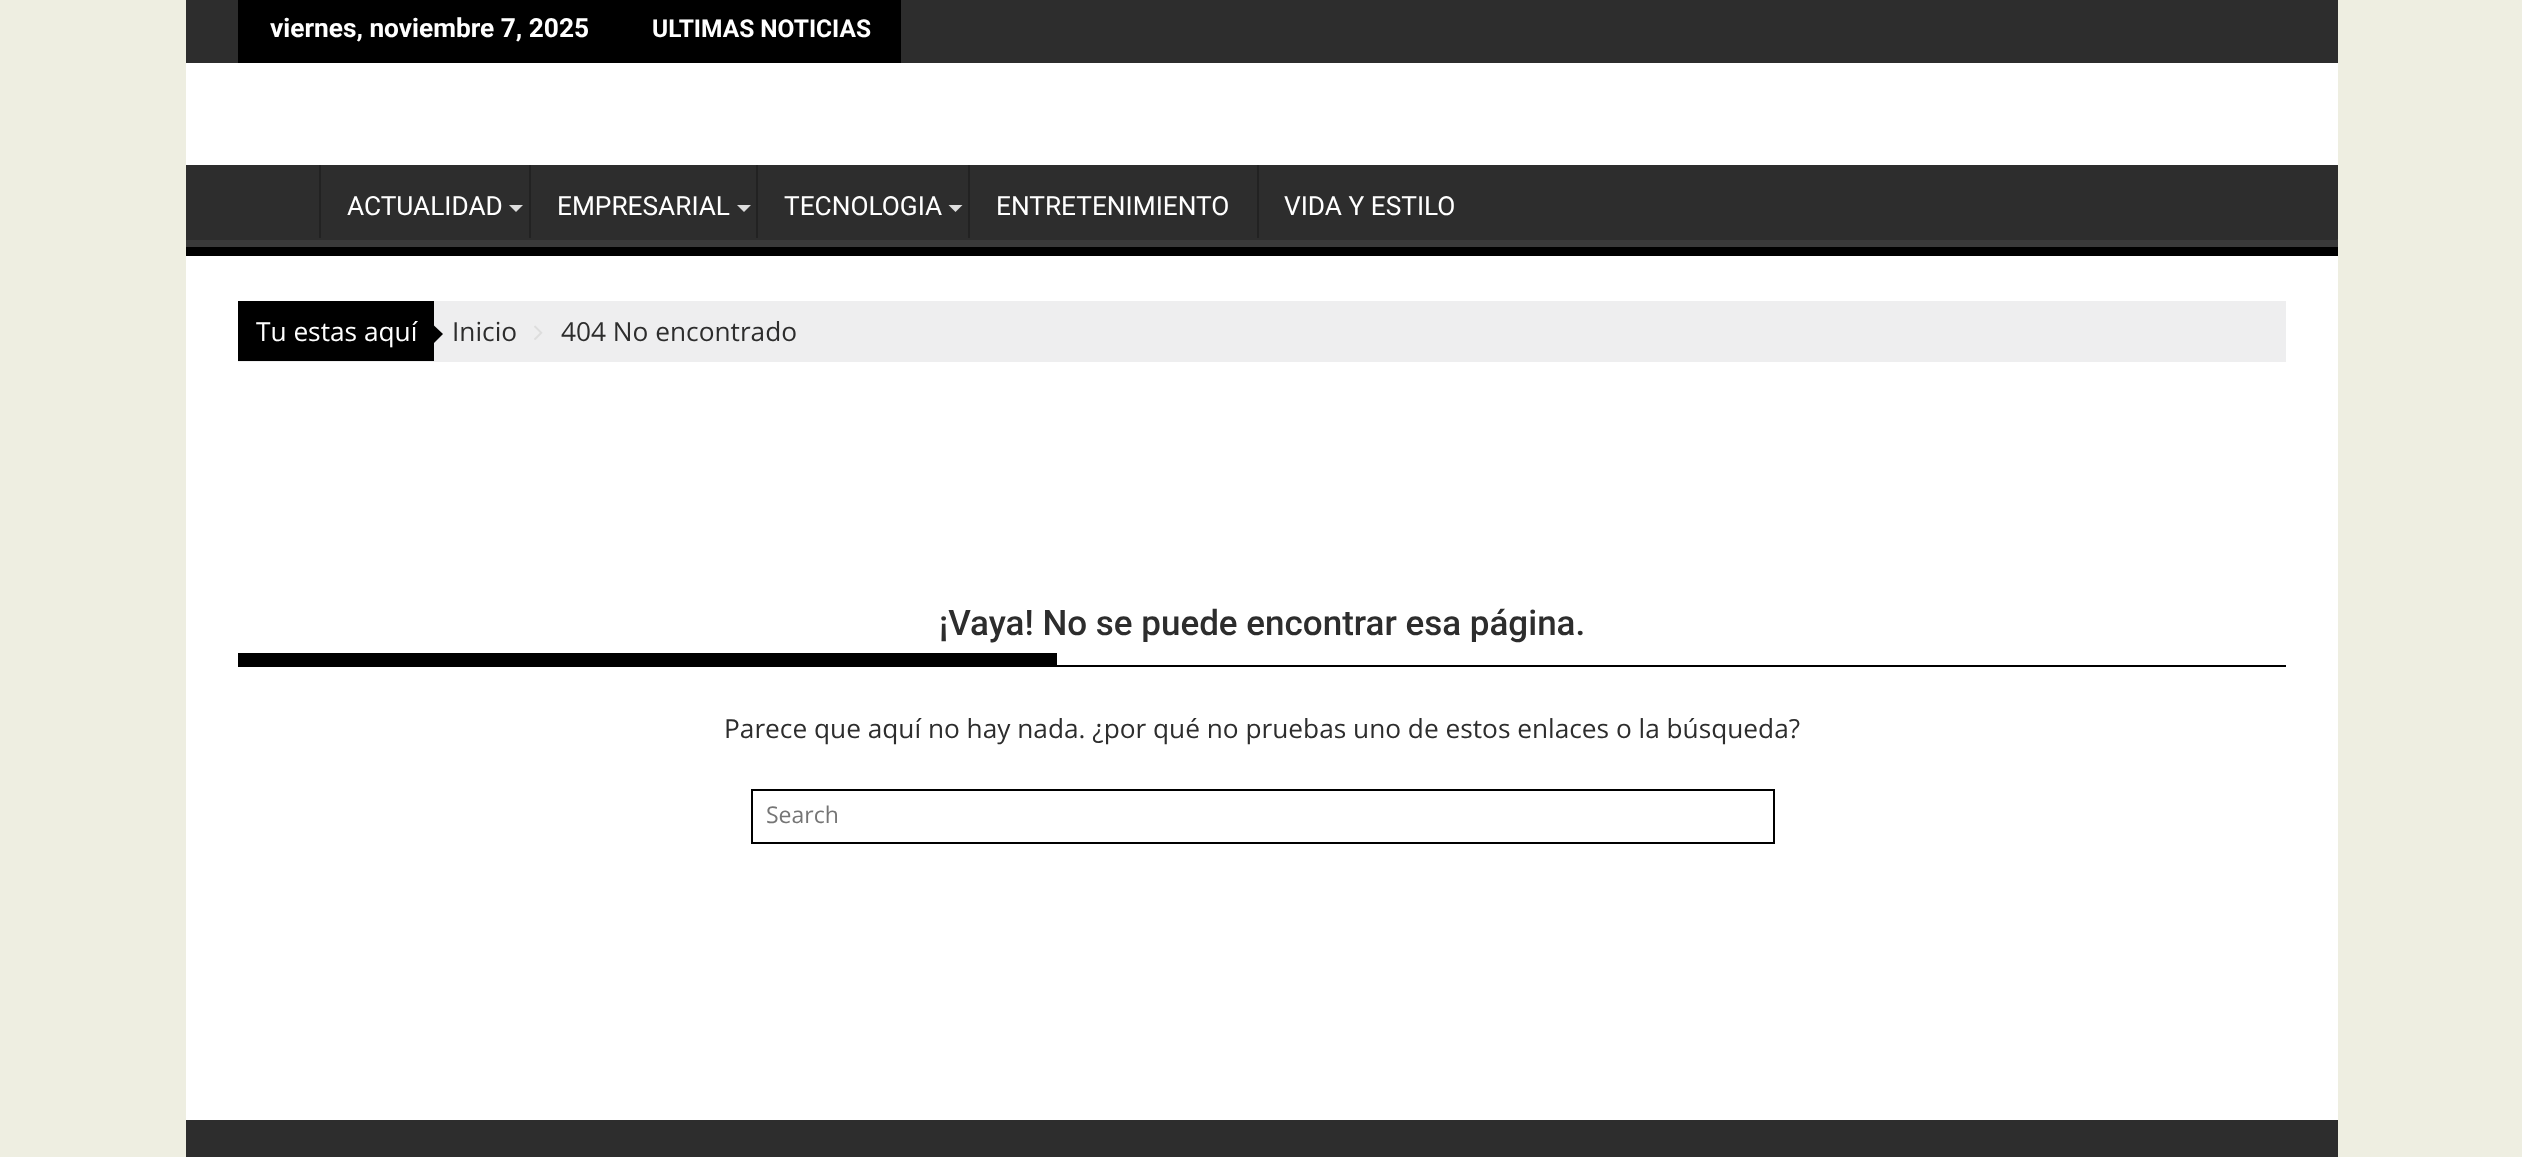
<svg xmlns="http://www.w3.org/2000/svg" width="2522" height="1157">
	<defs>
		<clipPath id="clip1"><rect x="186" y="165" width="2152" height="82" /></clipPath>
		<clipPath id="clip2"><rect x="767" y="800" width="966" height="31" /></clipPath>
	</defs>
	<rect width="100%" height="100%" fill="#EEEEE1" />
	<rect x="186" y="63" width="2152" height="1057" fill="#FFFFFF" />
	<rect x="186" y="0" width="2152" height="63" fill="#2D2D2D" />
	<rect x="238" y="0" width="663" height="63" fill="#000000" />
	<text x="270" y="37" font-family="Roboto" font-size="26.25" font-weight="700" fill="#FFFFFF">viernes, noviembre 7, 2025</text>
	<text x="652" y="37" font-family="Roboto" font-size="24.5" font-weight="700" fill="#FFFFFF">ULTIMAS NOTICIAS</text>
	<rect x="186" y="165" width="2152" height="75" fill="#2D2D2D" />
	<g clip-path="url(#clip1)">
		<path d="M12-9H2511V420H12ZM184 154H2336C2337 154 2338 155 2338 156V238C2338 239 2337 240 2336 240H184C183 240 182 239 182 238V156C182 155 183 154 184 154Z" fill="#393939" fill-rule="evenodd" />
	</g>
	<rect x="186" y="247" width="2152" height="9" fill="#000000" />
	<rect x="319" y="165" width="2" height="73" fill="#222222" />
	<text x="347" y="215" font-family="Roboto" font-size="26.25" fill="#FFFFFF">ACTUALIDAD</text>
	<path d="M509 205H523L516 212Z" fill="#DDDDDD" />
	<rect x="529" y="165" width="2" height="73" fill="#222222" />
	<text x="557" y="215" font-family="Roboto" font-size="26.25" fill="#FFFFFF">EMPRESARIAL</text>
	<path d="M737 205H751L744 212Z" fill="#DDDDDD" />
	<rect x="756" y="165" width="2" height="73" fill="#222222" />
	<text x="784" y="215" font-family="Roboto" font-size="26.25" fill="#FFFFFF">TECNOLOGIA</text>
	<path d="M948.5 205H962.5L955.5 212Z" fill="#DDDDDD" />
	<rect x="968" y="165" width="2" height="73" fill="#222222" />
	<text x="996" y="215" font-family="Roboto" font-size="26.25" fill="#FFFFFF">ENTRETENIMIENTO</text>
	<rect x="1257" y="165" width="2" height="73" fill="#222222" />
	<text x="1284" y="215" font-family="Roboto" font-size="26.25" fill="#FFFFFF">VIDA Y ESTILO</text>
	<rect x="238" y="301" width="2048" height="61" fill="#EEEEEF" />
	<rect x="238" y="301" width="196" height="60" fill="#000000" />
	<text x="256" y="341" font-family="Open Sans" font-size="26.25" fill="#FFFFFF">Tu estas aquí</text>
	<path d="M434 343V325.5L443 334Z" fill="#000000" />
	<text x="452" y="341" font-family="Open Sans" font-size="26.25" fill="#2D2D2D">Inicio</text>
	<image x="534" y="325" width="9" height="15" href="assets/img1.png" />
	<text x="561" y="341" font-family="Open Sans" font-size="26.25" fill="#2D2D2D">404 No encontrado</text>
	<rect x="238" y="665" width="2048" height="2" fill="#000000" />
	<text x="939" y="635" font-family="Roboto" font-size="35" font-weight="500" fill="#2D2D2D">¡Vaya! No se puede encontrar esa página.</text>
	<rect x="238" y="653" width="819" height="12" fill="#000000" />
	<text x="724" y="738" font-family="Open Sans" font-size="26.25" fill="#2D2D2D">Parece que aquí no hay nada. ¿por qué no pruebas uno de estos enlaces o la búsqueda?</text>
	<rect x="752" y="790" width="1022" height="53" fill="none" stroke="#000000" stroke-width="2" />
	<g clip-path="url(#clip2)">
		<text x="766" y="823" font-family="Open Sans" font-size="23" fill="#757575">Search</text>
	</g>
	<rect x="186" y="1120" width="2152" height="37" fill="#2D2D2D" />
</svg>
